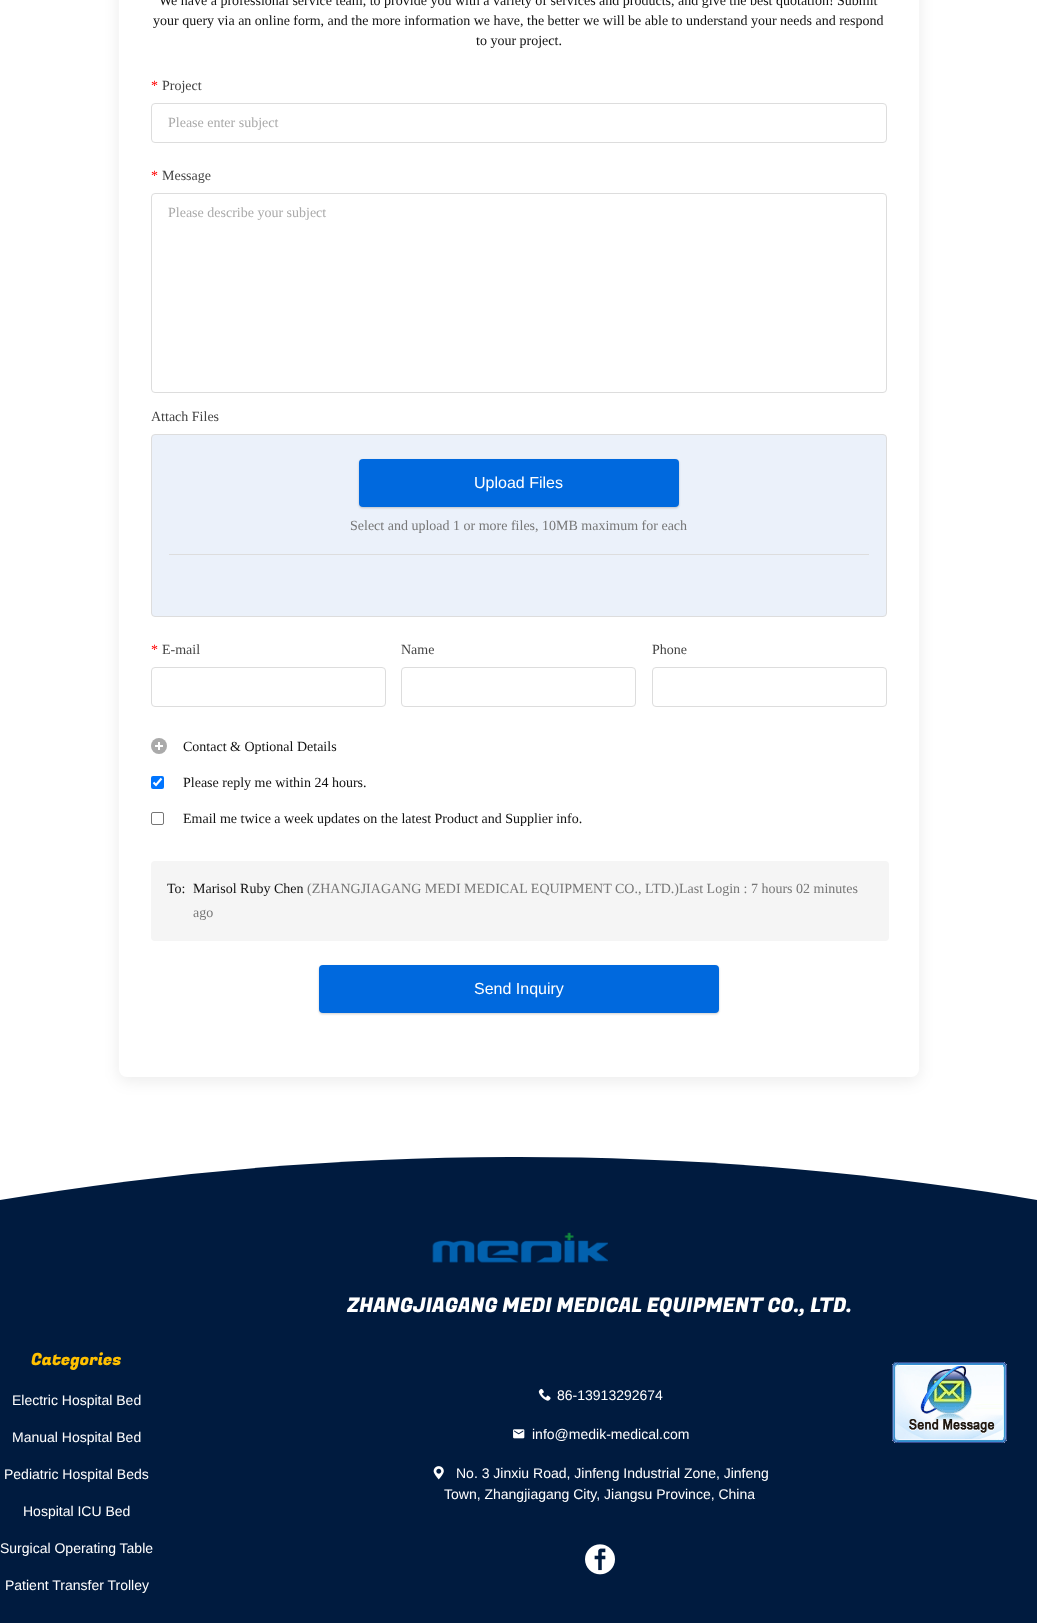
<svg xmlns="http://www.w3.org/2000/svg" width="1037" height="1623">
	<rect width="100%" height="100%" fill="#FFFFFF" />
	<rect x="119" y="-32" width="800" height="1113" rx="8" fill="#000000" fill-opacity="0.08" filter="blur(8px)" />
	<rect x="119" y="-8" width="800" height="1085" rx="8" fill="#FFFFFF" />
	<g font-family="Liberation Serif" font-size="14" fill="#111111">
		<text x="159" y="5">We have a professional service team, to provide you with a variety of services and products, and give the best quotation! Submit</text>
		<text x="153" y="25">your query via an online form, and the more information we have, the better we will be able to understand your needs and respond</text>
		<text x="476" y="45">to your project.</text>
	</g>
	<text x="151" y="90" font-family="Liberation Serif" font-size="14" fill="#FF0000">*</text>
	<text x="162" y="90" font-family="Liberation Serif" font-size="14" fill="#444444">Project</text>
	<rect x="151.5" y="103.5" width="735" height="39" rx="3.5" fill="none" stroke="#DDDDDD" />
	<text x="168" y="127" font-family="Liberation Serif" font-size="14" fill="#AAAAAA">Please enter subject</text>
	<text x="151" y="180" font-family="Liberation Serif" font-size="14" fill="#FF0000">*</text>
	<text x="162" y="180" font-family="Liberation Serif" font-size="14" fill="#444444">Message</text>
	<rect x="151.5" y="193.5" width="735" height="199" rx="3.5" fill="none" stroke="#DDDDDD" />
	<text x="168" y="217" font-family="Liberation Serif" font-size="14" fill="#AAAAAA">Please describe your subject</text>
	<text x="151" y="421" font-family="Liberation Serif" font-size="14" fill="#444444">Attach Files</text>
	<rect x="151.5" y="434.5" width="735" height="182" rx="3.5" fill="#EBF1FA" stroke="#DDDDDD" />
	<rect x="359" y="460" width="320" height="48" rx="4" fill="#000000" fill-opacity="0.2" filter="blur(1px)" />
	<rect x="359" y="459" width="320" height="48" rx="4" fill="#0069DE" />
	<text x="474" y="488" font-family="Liberation Sans" font-size="16" fill="#FFFFFF">Upload Files</text>
	<rect x="169" y="554" width="700" height="1" fill="#DDDDDD" />
	<text x="350" y="530" font-family="Liberation Serif" font-size="14" fill="#777777">Select and upload 1 or more files, 10MB maximum for each</text>
	<text x="151" y="654" font-family="Liberation Serif" font-size="14" fill="#FF0000">*</text>
	<text x="162" y="654" font-family="Liberation Serif" font-size="14" fill="#444444">E-mail</text>
	<rect x="151.5" y="667.5" width="234" height="39" rx="3.5" fill="none" stroke="#DDDDDD" />
	<text x="401" y="654" font-family="Liberation Serif" font-size="14" fill="#444444">Name</text>
	<rect x="401.5" y="667.5" width="234" height="39" rx="3.5" fill="none" stroke="#DDDDDD" />
	<text x="652" y="654" font-family="Liberation Serif" font-size="14" fill="#444444">Phone</text>
	<rect x="652.5" y="667.5" width="234" height="39" rx="3.5" fill="none" stroke="#DDDDDD" />
	<circle cx="159" cy="746" r="8" fill="#AAAAAA" />
	<rect x="155" y="745" width="8" height="2" fill="#FFFFFF" />
	<rect x="158" y="742" width="2" height="8" fill="#FFFFFF" />
	<text x="183" y="751" font-family="Liberation Serif" font-size="14" fill="#111111">Contact &amp; Optional Details</text>
	<rect x="151" y="776" width="13" height="13" rx="2" fill="#0075FF" />
	<path d="M153.5 782.5L156 785L161.5 778.5" fill="none" stroke="#FFFFFF" stroke-width="2.1" />
	<text x="183" y="787" font-family="Liberation Serif" font-size="14" fill="#111111">Please reply me within 24 hours.</text>
	<rect x="151.5" y="812.5" width="12" height="12" rx="1.5" fill="none" stroke="#767676" />
	<text x="183" y="823" font-family="Liberation Serif" font-size="14" fill="#111111">Email me twice a week updates on the latest Product and Supplier info.</text>
	<rect x="151" y="861" width="738" height="80" rx="4" fill="#F5F5F5" />
	<g font-family="Liberation Serif" font-size="14" fill="#111111">
		<text x="167" y="893">To:</text>
		<text x="193" y="893">Marisol Ruby Chen</text>
	</g>
	<g font-family="Liberation Serif" font-size="14" fill="#777777">
		<text x="307" y="893">(ZHANGJIAGANG MEDI MEDICAL EQUIPMENT CO., LTD.)Last Login : 7 hours 02 minutes</text>
		<text x="193" y="917">ago</text>
	</g>
	<rect x="319" y="966" width="400" height="48" rx="4" fill="#000000" fill-opacity="0.2" filter="blur(1px)" />
	<rect x="319" y="965" width="400" height="48" rx="4" fill="#0069DE" />
	<text x="474" y="994" font-family="Liberation Sans" font-size="16" fill="#FFFFFF">Send Inquiry</text>
	<path d="M519 1157C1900 1157 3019 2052 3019 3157H-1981C-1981 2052-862 1157 519 1157Z" fill="#001B3F" />
	<image x="432" y="1232" width="176" height="31" href="assets/img1.png" />
	<text x="347" y="1312" font-family="Fugaz One" font-size="20" fill="#FFFFFF">ZHANGJIAGANG MEDI MEDICAL EQUIPMENT CO., LTD.</text>
	<text x="31" y="1365" font-family="Fugaz One" font-size="16.75" fill="#FFC000">Categories</text>
	<g font-family="Liberation Sans" font-size="14" fill="#FFFFFF">
		<text x="12" y="1405">Electric Hospital Bed</text>
		<text x="12" y="1442">Manual Hospital Bed</text>
		<text x="4" y="1479">Pediatric Hospital Beds</text>
		<text x="23" y="1516">Hospital ICU Bed</text>
		<text x="0" y="1553">Surgical Operating Table</text>
		<text x="5" y="1590">Patient Transfer Trolley</text>
	</g>
	<image x="538" y="1388" width="13" height="13" href="assets/img2.png" />
	<text x="557" y="1400" font-family="Liberation Sans" font-size="14" fill="#FFFFFF">86-13913292674</text>
	<image x="513" y="1429" width="12" height="10" href="assets/img3.png" />
	<text x="532" y="1439" font-family="Liberation Sans" font-size="14" fill="#FFFFFF">info@medik-medical.com</text>
	<image x="433" y="1466" width="11" height="14" href="assets/img4.png" />
	<g font-family="Liberation Sans" font-size="14" fill="#FFFFFF">
		<text x="456" y="1478">No. 3 Jinxiu Road, Jinfeng Industrial Zone, Jinfeng</text>
		<text x="444" y="1499">Town, Zhangjiagang City, Jiangsu Province, China</text>
	</g>
	<image x="585" y="1544" width="30" height="31" href="assets/img5.png" />
	<image x="892" y="1362" width="115" height="81" href="assets/img6.png" />
</svg>
